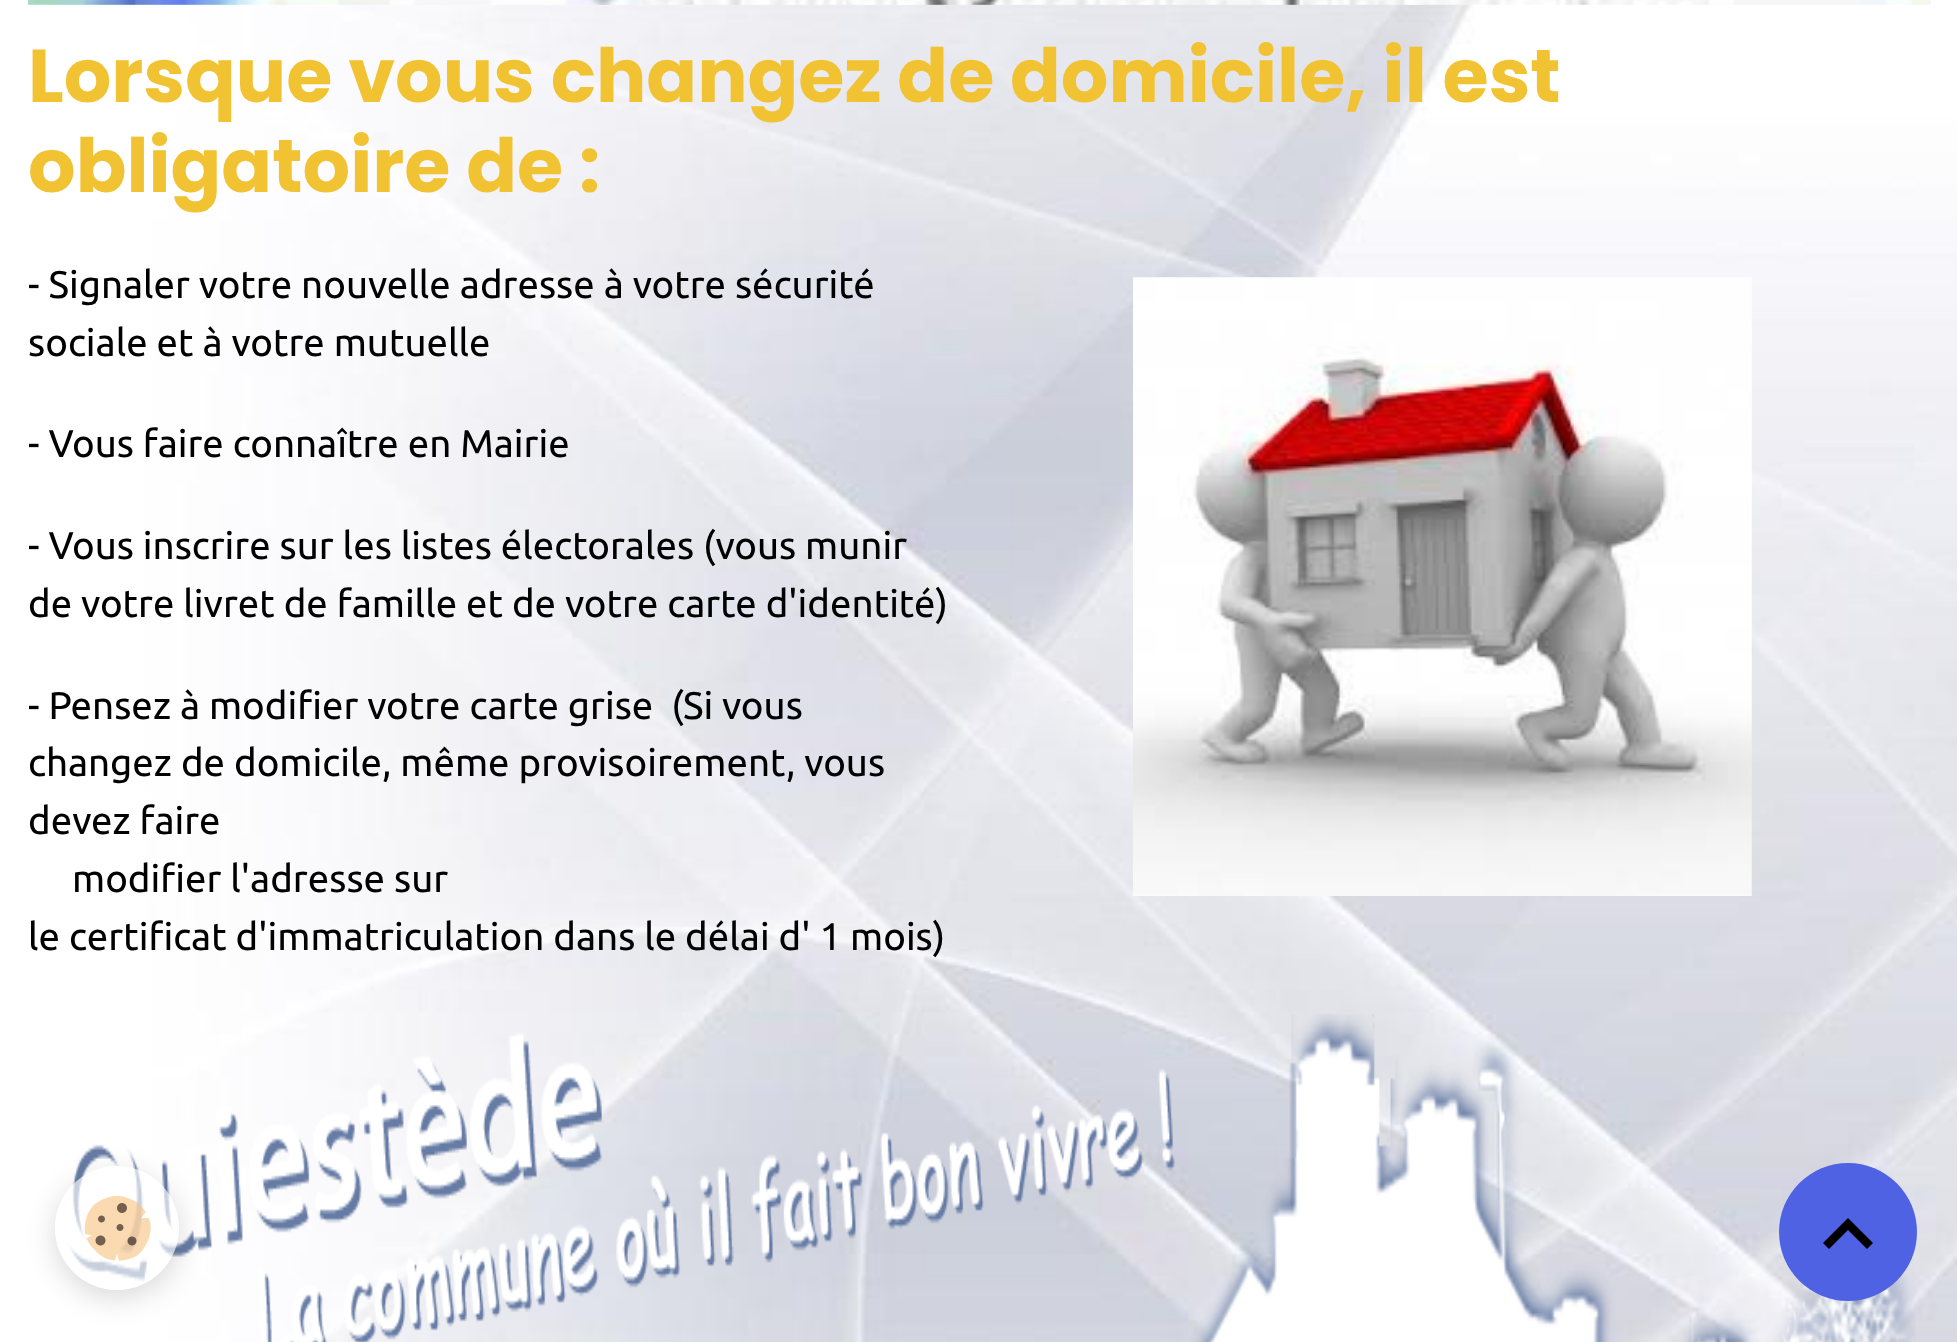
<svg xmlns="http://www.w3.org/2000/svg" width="1957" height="1342">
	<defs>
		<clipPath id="clip1"><path d="M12 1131H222V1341H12ZM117 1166C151 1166 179 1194 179 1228C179 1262 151 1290 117 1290C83 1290 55 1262 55 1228C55 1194 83 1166 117 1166Z" clip-rule="evenodd" /></clipPath>
	</defs>
	<rect width="100%" height="100%" fill="#FFFFFF" />
	<image x="0" y="0" width="1957" height="1342" href="assets/img1.png" />
	<image x="28" y="0" width="1903" height="5" href="assets/img2.png" />
	<g font-family="Poppins" font-size="74.8" font-weight="700" fill="#F1C232">
		<text x="28" y="102">Lorsque vous changez de domicile, il est</text>
		<text x="28" y="192">obligatoire de :</text>
	</g>
	<text x="28" y="298" font-family="Ubuntu" font-size="38.5" fill="#000000">- Signaler votre nouvelle adresse à votre sécurité</text>
	<image x="1133" y="277" width="619" height="619" href="assets/img3.png" />
	<g font-family="Ubuntu" font-size="38.5" fill="#000000">
		<text x="28" y="356">sociale et à votre mutuelle</text>
		<text x="28" y="457">- Vous faire connaître en Mairie</text>
		<text x="28" y="559">- Vous inscrire sur les listes électorales (vous munir</text>
		<text x="28" y="617">de votre livret de famille et de votre carte d'identité)</text>
		<text x="28" y="719" xml:space="preserve">- Pensez à modifier votre carte grise  (Si vous</text>
		<text x="28" y="776">changez de domicile, même provisoirement, vous</text>
		<text x="28" y="834">devez faire</text>
		<text x="72" y="892">modifier l'adresse sur</text>
		<text x="28" y="950">le certificat d'immatriculation dans le délai d' 1 mois)</text>
	</g>
	<image x="68" y="1014" width="1848" height="328" href="assets/img4.png" />
	<g clip-path="url(#clip1)">
		<rect x="55" y="1174" width="124" height="124" rx="62" fill="#000000" fill-opacity="0.15" filter="blur(14px)" />
	</g>
	<circle cx="117" cy="1228" r="62" fill="#FFFFFF" fill-opacity="0.64" />
	<image x="84" y="1195" width="67" height="66" href="assets/img5.png" />
	<circle cx="1848" cy="1232" r="69" fill="#4F62E4" />
	<path d="M1848 1218L1873 1243L1867 1249L1848 1230L1829 1249L1823 1243Z" fill="#000000" />
</svg>
